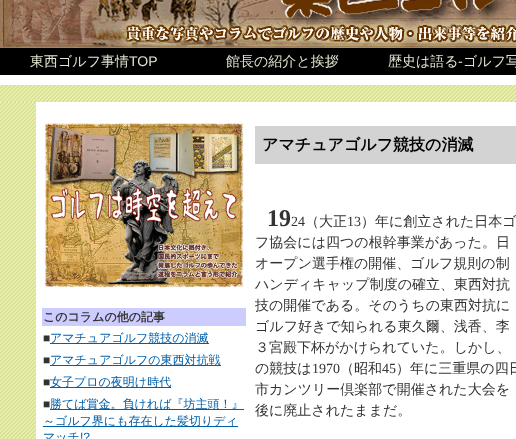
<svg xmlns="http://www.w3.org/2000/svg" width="516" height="439">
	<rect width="100%" height="100%" fill="#FFFFFF" />
	<image x="0" y="0" width="516" height="48" href="assets/img1.png" />
	<rect x="0" y="48" width="516" height="27" fill="#000000" />
	<text x="30" y="66" font-family="WenQuanYi Zen Hei" font-size="14" font-weight="500" fill="#E1E2CF">東西ゴルフ事情</text>
	<text x="129" y="66" font-family="Liberation Sans" font-size="14" fill="#E1E2CF">TOP</text>
	<g font-family="WenQuanYi Zen Hei" font-size="14" font-weight="500" fill="#E1E2CF">
		<text x="226" y="66">館長の紹介と挨拶</text>
		<text x="388" y="66">歴史は語る</text>
	</g>
	<text x="458" y="66" font-family="Liberation Sans" font-size="14" fill="#E1E2CF">-</text>
	<text x="463" y="66" font-family="WenQuanYi Zen Hei" font-size="14" font-weight="500" fill="#E1E2CF">ゴルフ写</text>
	<image x="0" y="85" width="516" height="17" href="assets/img2.png" />
	<image x="0" y="102" width="36" height="337" href="assets/img3.png" />
	<image x="44" y="122" width="200" height="166" href="assets/img4.png" />
	<rect x="42" y="308" width="204" height="18" fill="#CCCCFF" />
	<text x="43" y="321" font-family="WenQuanYi Zen Hei" font-size="12" font-weight="700" fill="#333333">このコラムの他の記事</text>
	<text x="43" y="342" font-family="Liberation Sans" font-size="12" fill="#333333">■</text>
	<rect x="50" y="343" width="159" height="1" fill="#005FA9" />
	<text x="50" y="342" font-family="WenQuanYi Zen Hei" font-size="12" font-weight="500" fill="#005FA9">アマチュアゴルフ競技の消滅</text>
	<text x="43" y="364" font-family="Liberation Sans" font-size="12" fill="#333333">■</text>
	<rect x="50" y="365" width="171" height="1" fill="#005FA9" />
	<text x="50" y="364" font-family="WenQuanYi Zen Hei" font-size="12" font-weight="500" fill="#005FA9">アマチュアゴルフの東西対抗戦</text>
	<text x="43" y="386" font-family="Liberation Sans" font-size="12" fill="#333333">■</text>
	<rect x="50" y="387" width="121" height="1" fill="#005FA9" />
	<text x="50" y="386" font-family="WenQuanYi Zen Hei" font-size="12" font-weight="500" fill="#005FA9">女子プロの夜明け時代</text>
	<text x="43" y="408" font-family="Liberation Sans" font-size="12" fill="#333333">■</text>
	<rect x="50" y="409" width="194" height="1" fill="#005FA9" />
	<text x="50" y="408" font-family="WenQuanYi Zen Hei" font-size="12" font-weight="500" fill="#005FA9">勝てば賞金。負ければ『坊主頭！』</text>
	<rect x="43" y="426" width="195" height="1" fill="#005FA9" />
	<g font-family="WenQuanYi Zen Hei" font-size="12" font-weight="500" fill="#005FA9">
		<text x="43" y="425">～ゴルフ界にも存在した髪切りディ</text>
		<text x="43" y="441">マッチ</text>
	</g>
	<text x="80" y="441" font-family="Liberation Sans" font-size="12" fill="#005FA9">!?</text>
	<rect x="255" y="126" width="261" height="38" fill="#D3D3D3" />
	<text x="262" y="150" font-family="WenQuanYi Zen Hei" font-size="16" font-weight="700" fill="#000000">アマチュアゴルフ競技の消滅</text>
	<text x="267" y="226" font-family="Liberation Serif" font-size="24" font-weight="700" fill="#333333">19</text>
	<text x="291" y="226" font-family="Liberation Serif" font-size="14" fill="#333333">24</text>
	<text x="305" y="226" font-family="WenQuanYi Zen Hei" font-size="14" font-weight="500" fill="#333333">（大正</text>
	<text x="347" y="226" font-family="Liberation Serif" font-size="14" fill="#333333">13</text>
	<g font-family="WenQuanYi Zen Hei" font-size="14" font-weight="500" fill="#333333">
		<text x="361" y="226">）年に創立された日本ゴ</text>
		<text x="255" y="247">フ協会には四つの根幹事業があった。日</text>
		<text x="255" y="268">オープン選手権の開催、ゴルフ規則の制</text>
		<text x="255" y="289">ハンディキャップ制度の確立、東西対抗</text>
		<text x="255" y="310">技の開催である。そのうちの東西対抗に</text>
		<text x="255" y="331">ゴルフ好きで知られる東久爾、浅香、李</text>
		<text x="255" y="352">３宮殿下杯がかけられていた。しかし、</text>
		<text x="255" y="373">の競技は</text>
	</g>
	<text x="312" y="373" font-family="Liberation Serif" font-size="14" fill="#333333">1970</text>
	<text x="340" y="373" font-family="WenQuanYi Zen Hei" font-size="14" font-weight="500" fill="#333333">（昭和</text>
	<text x="382" y="373" font-family="Liberation Serif" font-size="14" fill="#333333">45</text>
	<g font-family="WenQuanYi Zen Hei" font-size="14" font-weight="500" fill="#333333">
		<text x="396" y="373">）年に三重県の四日</text>
		<text x="255" y="394">市カンツリー倶楽部で開催された大会を</text>
		<text x="255" y="415">後に廃止されたままだ。</text>
	</g>
</svg>
